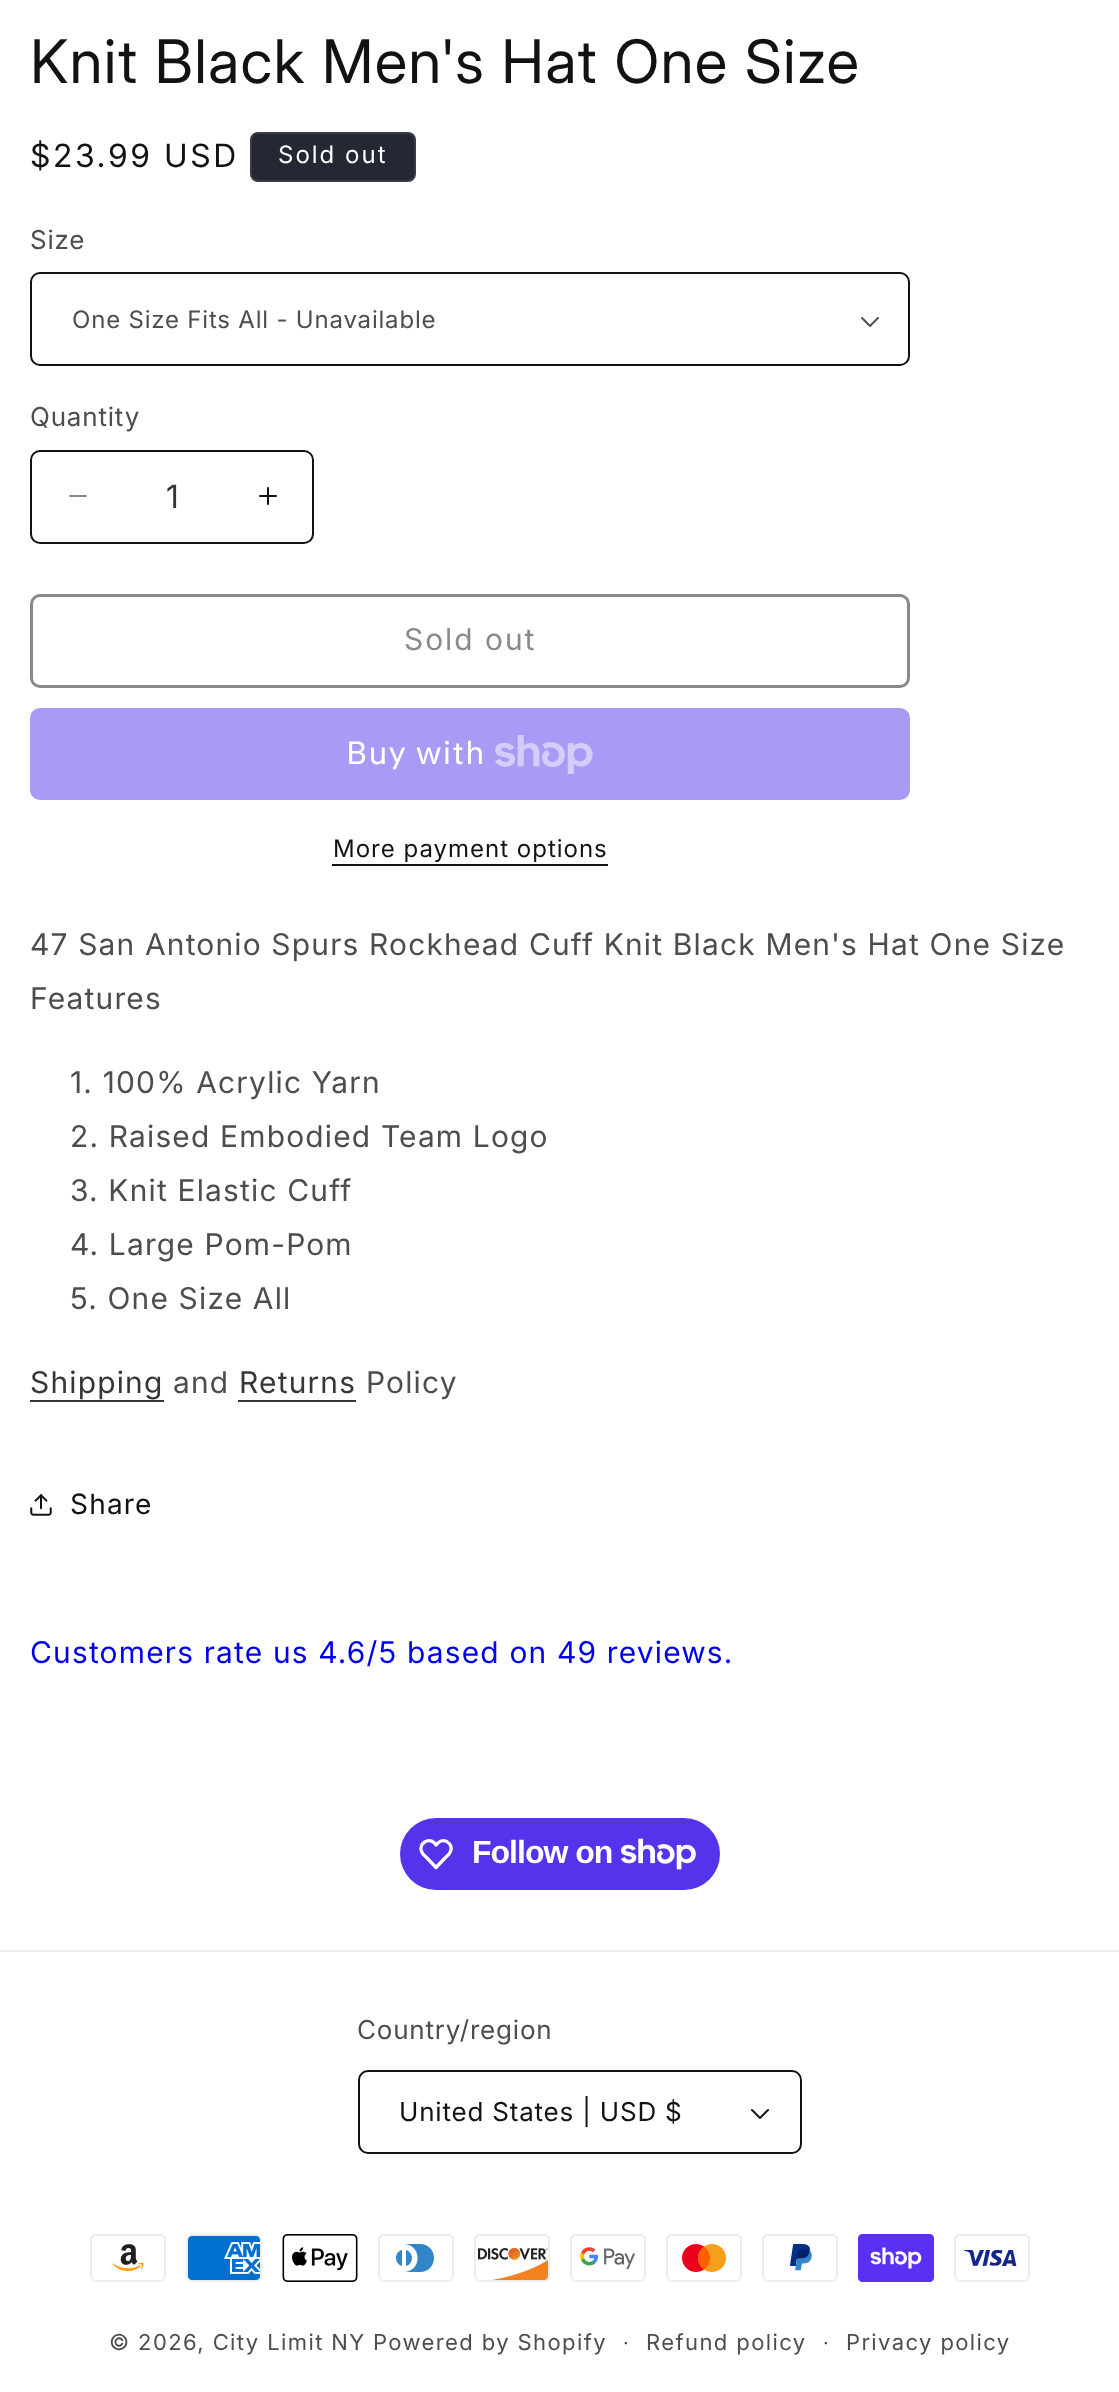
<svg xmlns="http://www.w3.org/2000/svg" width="1119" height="2392">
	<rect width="100%" height="100%" fill="#FFFFFF" />
	<text x="30" y="83" font-family="'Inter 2'" font-size="60" letter-spacing="1.2" fill="#121212">Knit Black Men's Hat One Size</text>
	<text x="30" y="167" font-family="'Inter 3'" font-size="32" letter-spacing="2.6" fill="#121212">$23.99 USD</text>
	<rect x="250" y="132" width="166" height="50" rx="8" fill="#242833" />
	<rect x="251" y="133" width="164" height="48" rx="7" fill="none" stroke="#FFFFFF" stroke-opacity="0.1" stroke-width="2" />
	<text x="278" y="163" font-family="Inter" font-size="24" letter-spacing="2" fill="#FFFFFF">Sold out</text>
	<text x="30" y="249" font-family="Inter" font-size="26" letter-spacing="0.8" fill="#4D4D4D">Size</text>
	<image x="861" y="317" width="18" height="10" href="assets/img1.png" />
	<rect x="31" y="273" width="878" height="92" rx="9" fill="none" stroke="#121212" stroke-width="2" />
	<text x="72" y="328" font-family="Inter" font-size="24" letter-spacing="0.8" fill="#4D4D4D">One Size Fits All - Unavailable</text>
	<text x="30" y="426" font-family="Inter" font-size="26" letter-spacing="0.8" fill="#4D4D4D">Quantity</text>
	<image x="69" y="495" width="18" height="2" href="assets/img2.png" />
	<image x="259" y="487" width="18" height="18" href="assets/img3.png" />
	<rect x="31" y="451" width="282" height="92" rx="9" fill="none" stroke="#121212" stroke-width="2" />
	<text x="166" y="508" font-family="'Inter 3'" font-size="32" fill="#363636">1</text>
	<rect x="31.5" y="595.5" width="877" height="91" rx="8.5" fill="none" stroke="#898989" stroke-width="3" />
	<text x="404" y="650" font-family="'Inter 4'" font-size="30" letter-spacing="2" fill="#898989">Sold out</text>
	<rect x="30" y="708" width="880" height="92" rx="10" fill="#AA99F5" />
	<text x="346" y="764" font-family="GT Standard" font-size="32" letter-spacing="1.2" fill="#FFFFFF">Buy with</text>
	<image x="495" y="735" width="98" height="39" href="assets/img4.png" />
	<text x="333" y="857" font-family="Inter" font-size="24" letter-spacing="1" fill="#121212">More payment options</text>
	<rect x="332" y="864" width="276" height="2" fill="#121212" />
	<g font-family="'Inter 4'" font-size="30" letter-spacing="1.2" fill="#4D4D4D">
		<text x="30" y="955">47 San Antonio Spurs Rockhead Cuff Knit Black Men's Hat One Size</text>
		<text x="30" y="1009">Features</text>
		<text x="70" y="1093">1. 100% Acrylic Yarn</text>
		<text x="70" y="1147">2. Raised Embodied Team Logo</text>
		<text x="70" y="1201">3. Knit Elastic Cuff</text>
		<text x="70" y="1255">4. Large Pom-Pom</text>
		<text x="70" y="1309">5. One Size All</text>
	</g>
	<text x="30" y="1393" font-family="'Inter 4'" font-size="30" letter-spacing="1.2" fill="#363636">Shipping</text>
	<rect x="30" y="1400" width="134" height="2" fill="#363636" />
	<text x="173" y="1393" font-family="'Inter 4'" font-size="30" letter-spacing="1.2" fill="#4D4D4D">and</text>
	<text x="239" y="1393" font-family="'Inter 4'" font-size="30" letter-spacing="1.2" fill="#363636">Returns</text>
	<rect x="238" y="1400" width="118" height="2" fill="#363636" />
	<text x="366" y="1393" font-family="'Inter 4'" font-size="30" letter-spacing="1.2" fill="#4D4D4D">Policy</text>
	<image x="30" y="1494" width="22" height="22" href="assets/img5.png" />
	<text x="70" y="1514" font-family="Inter" font-size="28" letter-spacing="1.2" fill="#121212">Share</text>
	<text x="30" y="1663" font-family="'Inter 4'" font-size="30" letter-spacing="1.2" fill="#0000EE">Customers rate us 4.6/5 based on 49 reviews.</text>
	<rect x="400" y="1818" width="320" height="72" rx="36" fill="#5433EB" />
	<path d="M434.5 1843L436 1845C437.5 1843.5 439 1841.5 441 1841C447 1839 453 1845.5 450.5 1851.5C449.5 1854.5 446.5 1856.5 444.5 1858.5L436 1867.5L427.5 1858.5C425.5 1856.5 422.5 1854.5 421.5 1851.5C418.5 1843.5 428.5 1837 434.5 1843Z" fill="none" stroke="#FFFFFF" stroke-width="3.3" stroke-linejoin="round" />
	<text x="472" y="1863" font-family="Liberation Sans" font-size="32" font-weight="700" letter-spacing="-1" fill="#FFFFFF">Follow on</text>
	<image x="621" y="1838" width="75" height="32" href="assets/img6.png" />
	<rect x="0" y="1950" width="1119" height="2" fill="#ECECEC" />
	<text x="357" y="2039" font-family="Inter" font-size="26" letter-spacing="0.8" fill="#4D4D4D">Country/region</text>
	<image x="751" y="2109" width="18" height="10" href="assets/img7.png" />
	<rect x="359" y="2071" width="442" height="82" rx="9" fill="none" stroke="#121212" stroke-width="2" />
	<text x="399" y="2121" font-family="Inter" font-size="26" letter-spacing="0.8" fill="#121212">United States | USD $</text>
	<image x="90" y="2234" width="76" height="48" href="assets/img8.png" />
	<image x="186" y="2234" width="76" height="48" href="assets/img9.png" />
	<image x="282" y="2234" width="76" height="48" href="assets/img10.png" />
	<image x="378" y="2234" width="76" height="48" href="assets/img11.png" />
	<image x="474" y="2234" width="76" height="48" href="assets/img12.png" />
	<image x="570" y="2234" width="76" height="48" href="assets/img13.png" />
	<image x="666" y="2234" width="76" height="48" href="assets/img14.png" />
	<image x="762" y="2234" width="76" height="48" href="assets/img15.png" />
	<image x="858" y="2234" width="76" height="48" href="assets/img16.png" />
	<image x="954" y="2234" width="76" height="48" href="assets/img17.png" />
	<g font-family="Inter" font-size="22" letter-spacing="1.4" fill="#4D4D4D">
		<text x="109" y="2350">© 2026, City Limit NY</text>
		<text x="373" y="2350">Powered by Shopify</text>
	</g>
	<text x="623" y="2350" font-family="Inter" font-size="20" letter-spacing="1.4" fill="#4D4D4D">·</text>
	<text x="646" y="2350" font-family="Inter" font-size="22" letter-spacing="1.4" fill="#4D4D4D">Refund policy</text>
	<text x="823" y="2350" font-family="Inter" font-size="20" letter-spacing="1.4" fill="#4D4D4D">·</text>
	<text x="846" y="2350" font-family="Inter" font-size="22" letter-spacing="1.4" fill="#4D4D4D">Privacy policy</text>
</svg>
